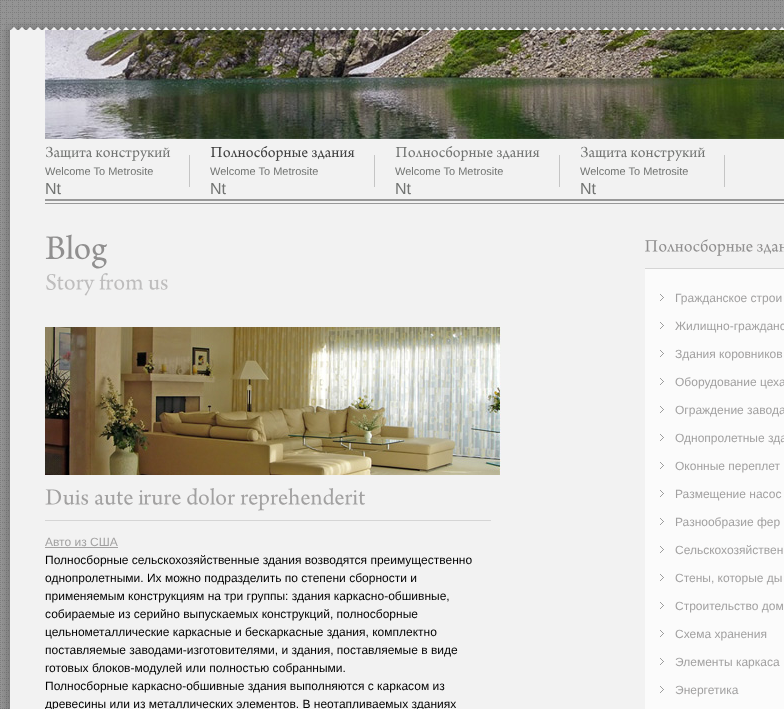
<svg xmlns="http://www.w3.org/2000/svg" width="784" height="709">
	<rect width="100%" height="100%" fill="#949494" />
	<image x="0" y="0" width="783" height="709" href="assets/img1.png" />
	<image x="4" y="22" width="780" height="8" href="assets/img2.png" />
	<image x="2" y="30" width="782" height="679" href="assets/img3.png" />
	<image x="45" y="199" width="739" height="5" href="assets/img4.png" />
	<image x="45" y="30" width="739" height="109" href="assets/img5.png" />
	<rect x="189" y="155" width="1" height="32" fill="#C5C5C5" />
	<image x="46" y="146" width="46" height="14" href="assets/img6.png" />
	<image x="95" y="147" width="76" height="14" href="assets/img7.png" />
	<text x="45" y="175" font-family="Liberation Sans" font-size="11" fill="#727472">Welcome To Metrosite</text>
	<text x="45" y="194" font-family="Liberation Sans" font-size="16" fill="#727472">Nt</text>
	<rect x="374" y="155" width="1" height="32" fill="#C5C5C5" />
	<image x="210" y="146" width="98" height="15" href="assets/img8.png" />
	<image x="311" y="150" width="44" height="10" href="assets/img9.png" />
	<text x="210" y="175" font-family="Liberation Sans" font-size="11" fill="#727472">Welcome To Metrosite</text>
	<text x="210" y="194" font-family="Liberation Sans" font-size="16" fill="#727472">Nt</text>
	<rect x="559" y="155" width="1" height="32" fill="#C5C5C5" />
	<image x="395" y="146" width="98" height="15" href="assets/img10.png" />
	<image x="497" y="150" width="43" height="10" href="assets/img11.png" />
	<text x="395" y="175" font-family="Liberation Sans" font-size="11" fill="#727472">Welcome To Metrosite</text>
	<text x="395" y="194" font-family="Liberation Sans" font-size="16" fill="#727472">Nt</text>
	<rect x="724" y="155" width="1" height="32" fill="#C5C5C5" />
	<image x="581" y="146" width="46" height="14" href="assets/img6.png" />
	<image x="630" y="147" width="76" height="14" href="assets/img7.png" />
	<text x="580" y="175" font-family="Liberation Sans" font-size="11" fill="#727472">Welcome To Metrosite</text>
	<text x="580" y="194" font-family="Liberation Sans" font-size="16" fill="#727472">Nt</text>
	<image x="45" y="234" width="62" height="35" href="assets/img12.png" />
	<image x="46" y="274" width="49" height="22" href="assets/img13.png" />
	<image x="99" y="273" width="44" height="17" href="assets/img14.png" />
	<image x="148" y="279" width="20" height="11" href="assets/img15.png" />
	<image x="45" y="327" width="456" height="148" href="assets/img16.png" />
	<rect x="45" y="520" width="446" height="1" fill="#D5D5D5" />
	<image x="45" y="489" width="44" height="16" href="assets/img17.png" />
	<image x="95" y="491" width="38" height="14" href="assets/img18.png" />
	<image x="138" y="490" width="43" height="15" href="assets/img19.png" />
	<image x="187" y="488" width="48" height="17" href="assets/img20.png" />
	<image x="240" y="488" width="125" height="23" href="assets/img21.png" />
	<text x="45" y="546" font-family="Liberation Sans" font-size="12" fill="#A2A1A1">Авто из США</text>
	<rect x="45" y="547" width="73" height="1" fill="#A2A1A1" />
	<g font-family="Liberation Sans" font-size="12" fill="#000000">
		<text x="45" y="564">Полносборные сельскохозяйственные здания возводятся преимущественно</text>
		<text x="45" y="582">однопролетными. Их можно подразделить по степени сборности и</text>
		<text x="45" y="600">применяемым конструкциям на три группы: здания каркасно-обшивные,</text>
		<text x="45" y="618">собираемые из серийно выпускаемых конструкций, полносборные</text>
		<text x="45" y="636">цельнометаллические каркасные и бескаркасные здания, комплектно</text>
		<text x="45" y="654">поставляемые заводами-изготовителями, и здания, поставляемые в виде</text>
		<text x="45" y="672">готовых блоков-модулей или полностью собранными.</text>
		<text x="45" y="690">Полносборные каркасно-обшивные здания выполняются с каркасом из</text>
		<text x="45" y="708">древесины или из металлических элементов. В неотапливаемых зданиях</text>
	</g>
	<image x="645" y="239" width="108" height="17" href="assets/img22.png" />
	<image x="757" y="244" width="27" height="10" href="assets/img23.png" />
	<rect x="645" y="269" width="139" height="440" fill="#FBFBFB" />
	<rect x="645" y="268" width="139" height="1" fill="#D5D5D5" />
	<image x="660" y="294" width="4" height="7" href="assets/img24.png" />
	<text x="675" y="302" font-family="Liberation Sans" font-size="12" fill="#A2A1A1">Гражданское строи</text>
	<image x="660" y="322" width="4" height="7" href="assets/img24.png" />
	<text x="675" y="330" font-family="Liberation Sans" font-size="12" fill="#A2A1A1">Жилищно-гражданс</text>
	<image x="660" y="350" width="4" height="7" href="assets/img24.png" />
	<text x="675" y="358" font-family="Liberation Sans" font-size="12" fill="#A2A1A1">Здания коровников</text>
	<image x="660" y="378" width="4" height="7" href="assets/img24.png" />
	<text x="675" y="386" font-family="Liberation Sans" font-size="12" fill="#A2A1A1">Оборудование цеха</text>
	<image x="660" y="406" width="4" height="7" href="assets/img24.png" />
	<text x="675" y="414" font-family="Liberation Sans" font-size="12" fill="#A2A1A1">Ограждение завода</text>
	<image x="660" y="434" width="4" height="7" href="assets/img24.png" />
	<text x="675" y="442" font-family="Liberation Sans" font-size="12" fill="#A2A1A1">Однопролетные зда</text>
	<image x="660" y="462" width="4" height="7" href="assets/img24.png" />
	<text x="675" y="470" font-family="Liberation Sans" font-size="12" fill="#A2A1A1">Оконные переплет</text>
	<image x="660" y="490" width="4" height="7" href="assets/img24.png" />
	<text x="675" y="498" font-family="Liberation Sans" font-size="12" fill="#A2A1A1">Размещение насос</text>
	<image x="660" y="518" width="4" height="7" href="assets/img24.png" />
	<text x="675" y="526" font-family="Liberation Sans" font-size="12" fill="#A2A1A1">Разнообразие фер</text>
	<image x="660" y="546" width="4" height="7" href="assets/img24.png" />
	<text x="675" y="554" font-family="Liberation Sans" font-size="12" fill="#A2A1A1">Сельскохозяйствен</text>
	<image x="660" y="574" width="4" height="7" href="assets/img24.png" />
	<text x="675" y="582" font-family="Liberation Sans" font-size="12" fill="#A2A1A1">Стены, которые ды</text>
	<image x="660" y="602" width="4" height="7" href="assets/img24.png" />
	<text x="675" y="610" font-family="Liberation Sans" font-size="12" fill="#A2A1A1">Строительство дом</text>
	<image x="660" y="630" width="4" height="7" href="assets/img24.png" />
	<text x="675" y="638" font-family="Liberation Sans" font-size="12" fill="#A2A1A1">Схема хранения</text>
	<image x="660" y="658" width="4" height="7" href="assets/img24.png" />
	<text x="675" y="666" font-family="Liberation Sans" font-size="12" fill="#A2A1A1">Элементы каркаса</text>
	<image x="660" y="686" width="4" height="7" href="assets/img24.png" />
	<text x="675" y="694" font-family="Liberation Sans" font-size="12" fill="#A2A1A1">Энергетика</text>
</svg>
